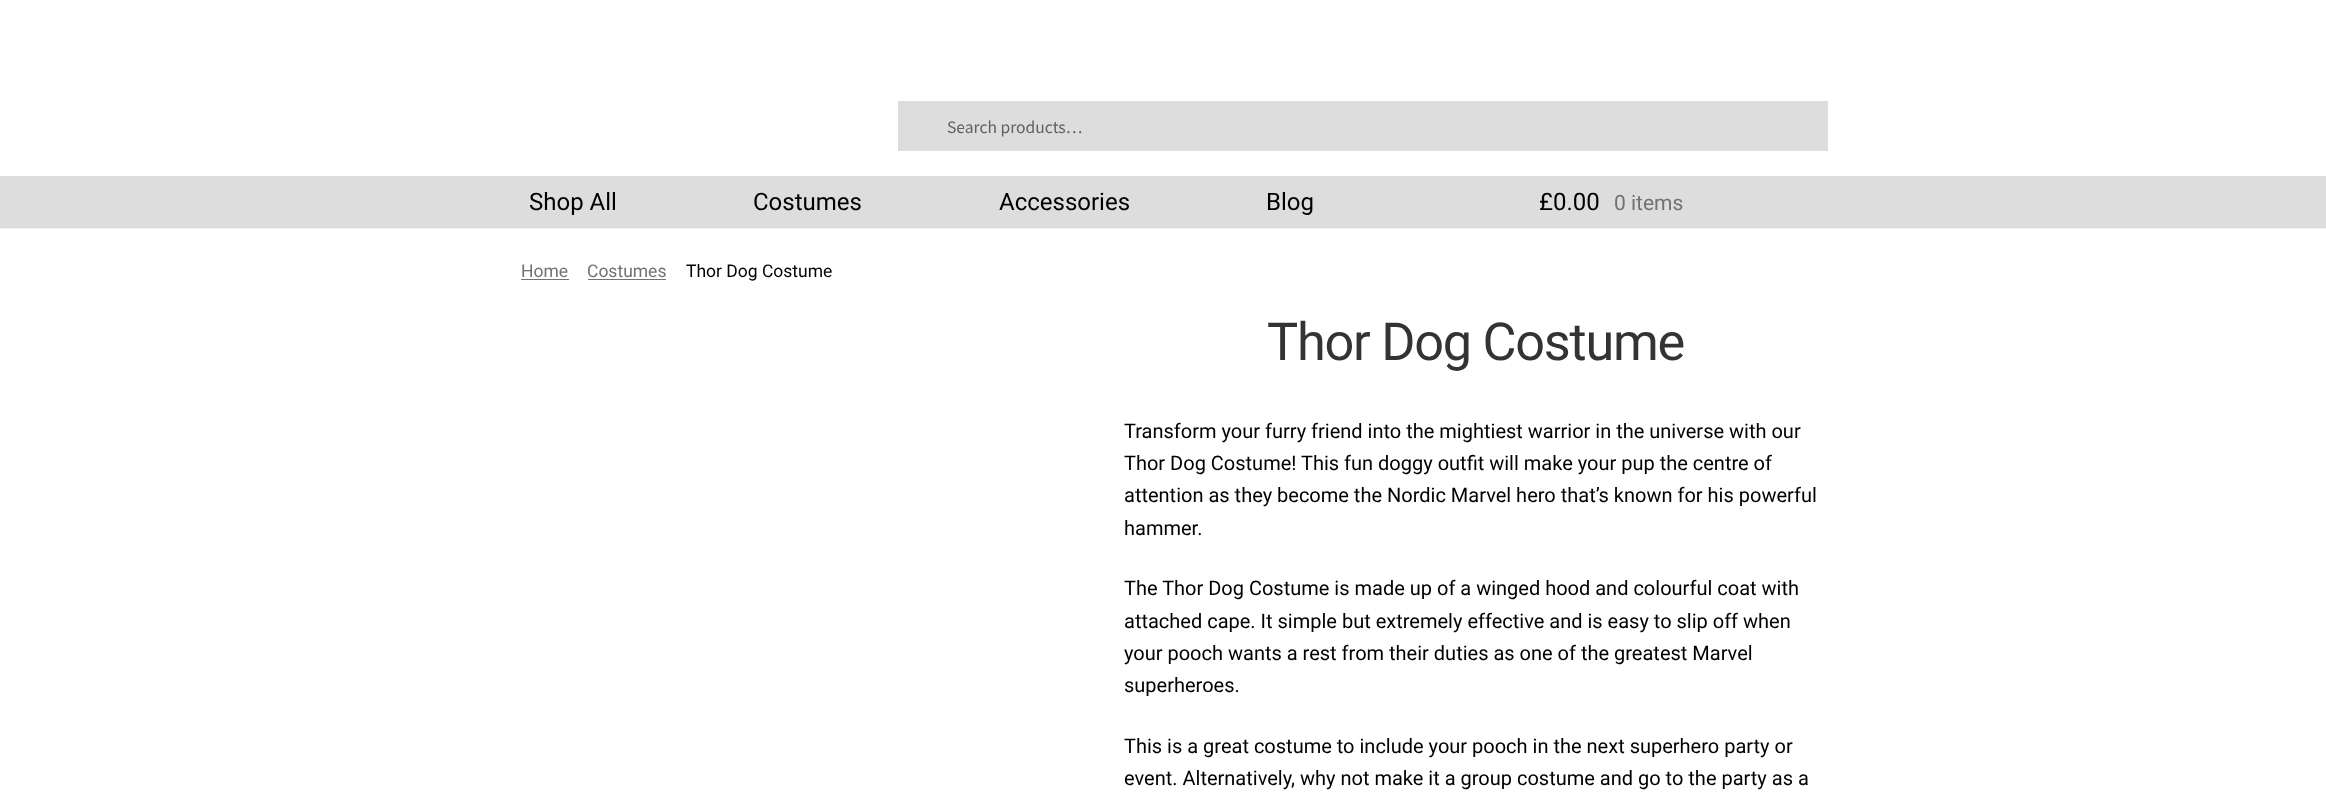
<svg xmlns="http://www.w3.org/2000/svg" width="2326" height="804">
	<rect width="100%" height="100%" fill="#FFFFFF" />
	<rect x="0" y="228" width="2326" height="1" fill="#F0F0F0" />
	<rect x="898" y="101" width="930" height="50" fill="#DDDDDD" />
	<text x="947" y="133" font-family="Source Sans Pro" font-size="17.5" fill="#616161">Search products…</text>
	<rect x="0" y="176" width="2326" height="52" fill="#DDDDDD" />
	<g font-family="Roboto" font-size="24" fill="#000000">
		<text x="529" y="210">Shop All</text>
		<text x="753" y="210">Costumes</text>
		<text x="999" y="210">Accessories</text>
		<text x="1266" y="210">Blog</text>
		<text x="1539" y="210">£0.00</text>
	</g>
	<text x="1614" y="210" font-family="Roboto" font-size="21" fill="#727272">0 items</text>
	<text x="521" y="277" font-family="Roboto" font-size="17.5" fill="#727272">Home</text>
	<rect x="521" y="279" width="48" height="1" fill="#727272" />
	<text x="587" y="277" font-family="Roboto" font-size="17.5" fill="#727272">Costumes</text>
	<rect x="588" y="279" width="78" height="1" fill="#727272" />
	<text x="686" y="277" font-family="Roboto" font-size="17.5" fill="#000000">Thor Dog Costume</text>
	<text x="1267" y="360" font-family="Roboto" font-size="52.25" letter-spacing="-1.25" fill="#333333">Thor Dog Costume</text>
	<g font-family="Roboto" font-size="20" fill="#000000">
		<text x="1124" y="438">Transform your furry friend into the mightiest warrior in the universe with our</text>
		<text x="1124" y="470">Thor Dog Costume! This fun doggy outfit will make your pup the centre of</text>
		<text x="1124" y="502">attention as they become the Nordic Marvel hero that’s known for his powerful</text>
		<text x="1124" y="535">hammer.</text>
		<text x="1124" y="595">The Thor Dog Costume is made up of a winged hood and colourful coat with</text>
		<text x="1124" y="628">attached cape. It simple but extremely effective and is easy to slip off when</text>
		<text x="1124" y="660">your pooch wants a rest from their duties as one of the greatest Marvel</text>
		<text x="1124" y="692">superheroes.</text>
		<text x="1124" y="753">This is a great costume to include your pooch in the next superhero party or</text>
		<text x="1124" y="785">event. Alternatively, why not make it a group costume and go to the party as a</text>
	</g>
</svg>
